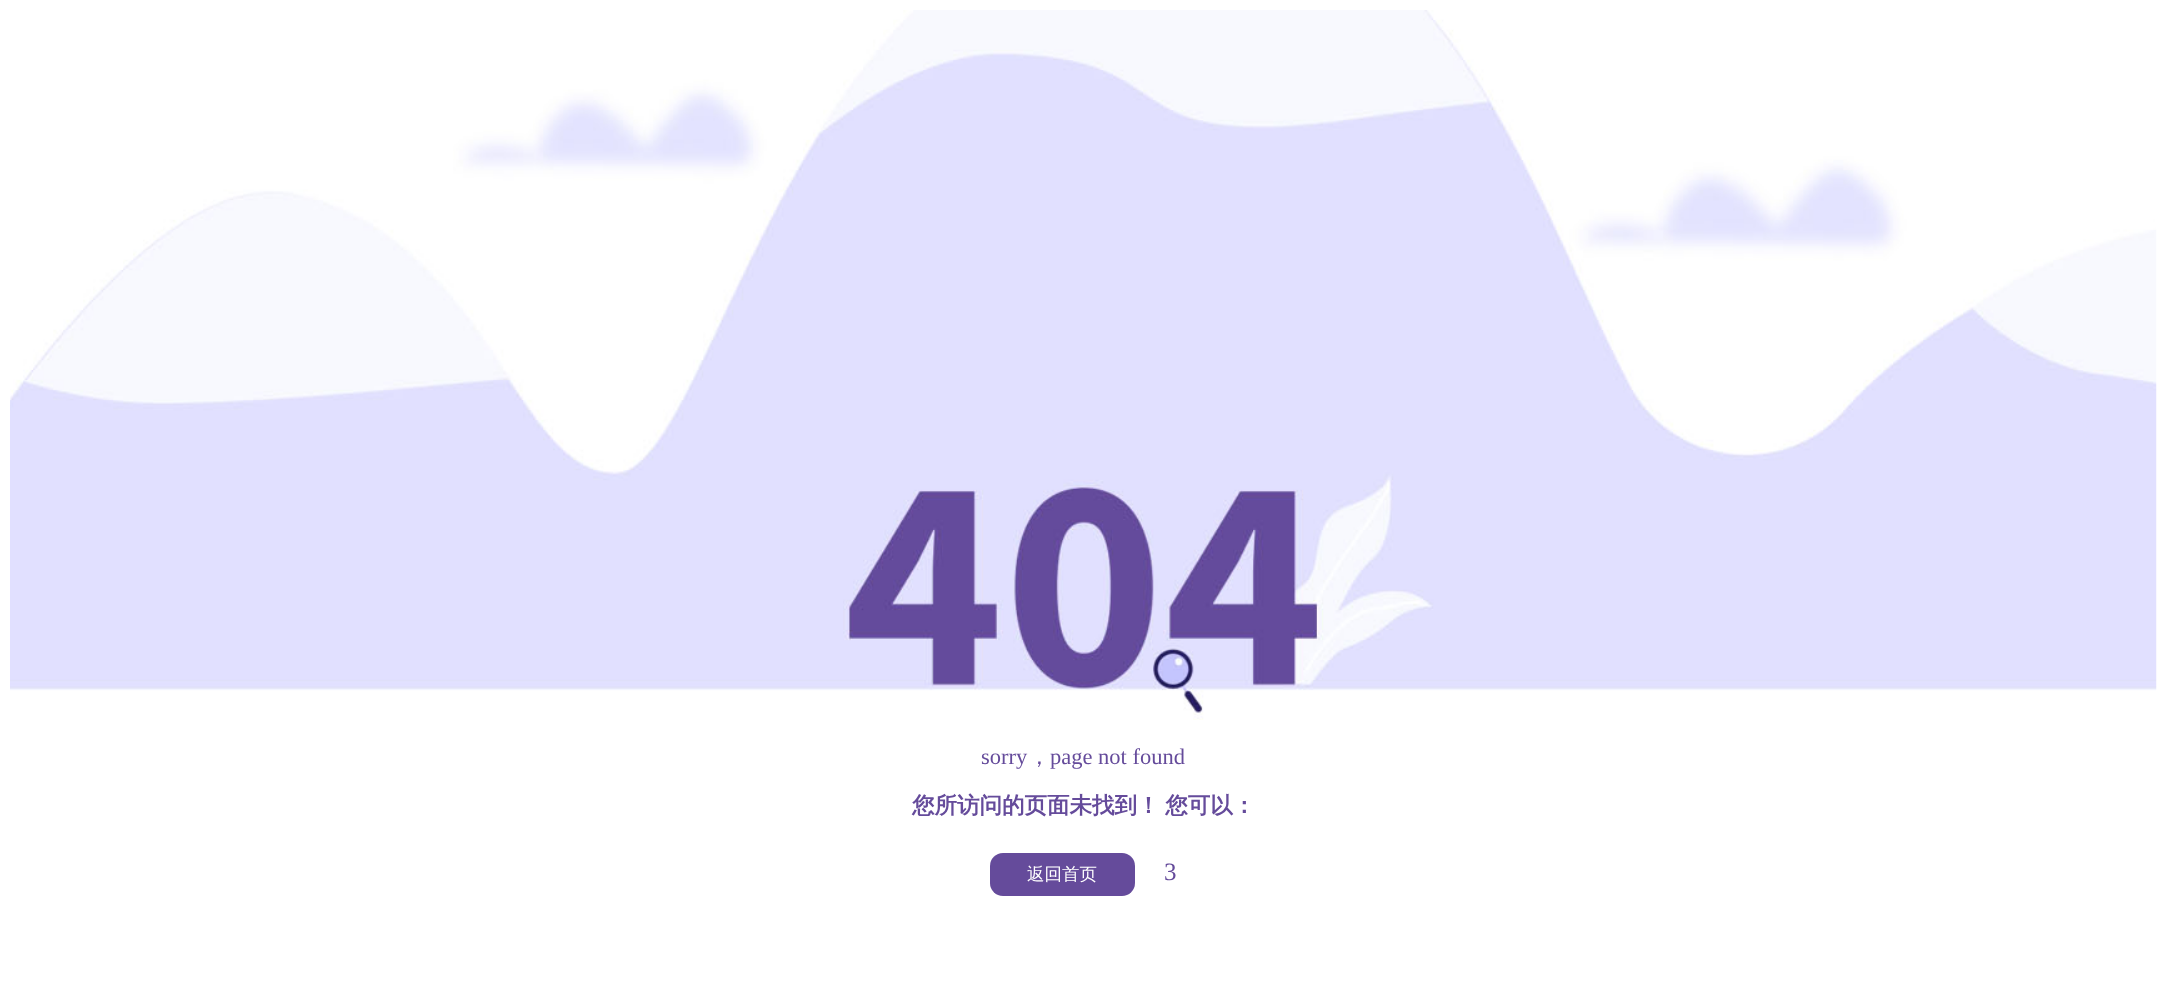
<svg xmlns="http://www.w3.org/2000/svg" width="2166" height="992">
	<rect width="100%" height="100%" fill="#FFFFFF" />
	<image x="10" y="10" width="2147" height="710" href="assets/img1.png" />
	<text x="981" y="764" font-family="Liberation Serif" font-size="22.5" fill="#654B9B">sorry</text>
	<text x="1028" y="764" font-family="WenQuanYi Zen Hei" font-size="22.5" font-weight="500" fill="#654B9B">，</text>
	<text x="1050" y="764" font-family="Liberation Serif" font-size="22.5" fill="#654B9B">page not found</text>
	<text x="912" y="813" word-spacing="-1" font-family="WenQuanYi Zen Hei" font-size="22.5" font-weight="700" fill="#654B9B">您所访问的页面未找到！ 您可以：</text>
	<rect x="990" y="853" width="145" height="43" rx="13" fill="#654B9B" />
	<text x="1027" y="880" font-family="WenQuanYi Zen Hei" font-size="17.5" font-weight="500" fill="#FFFFFF">返回首页</text>
	<text x="1164" y="880" font-family="Liberation Serif" font-size="25" fill="#654B9B">3</text>
</svg>
